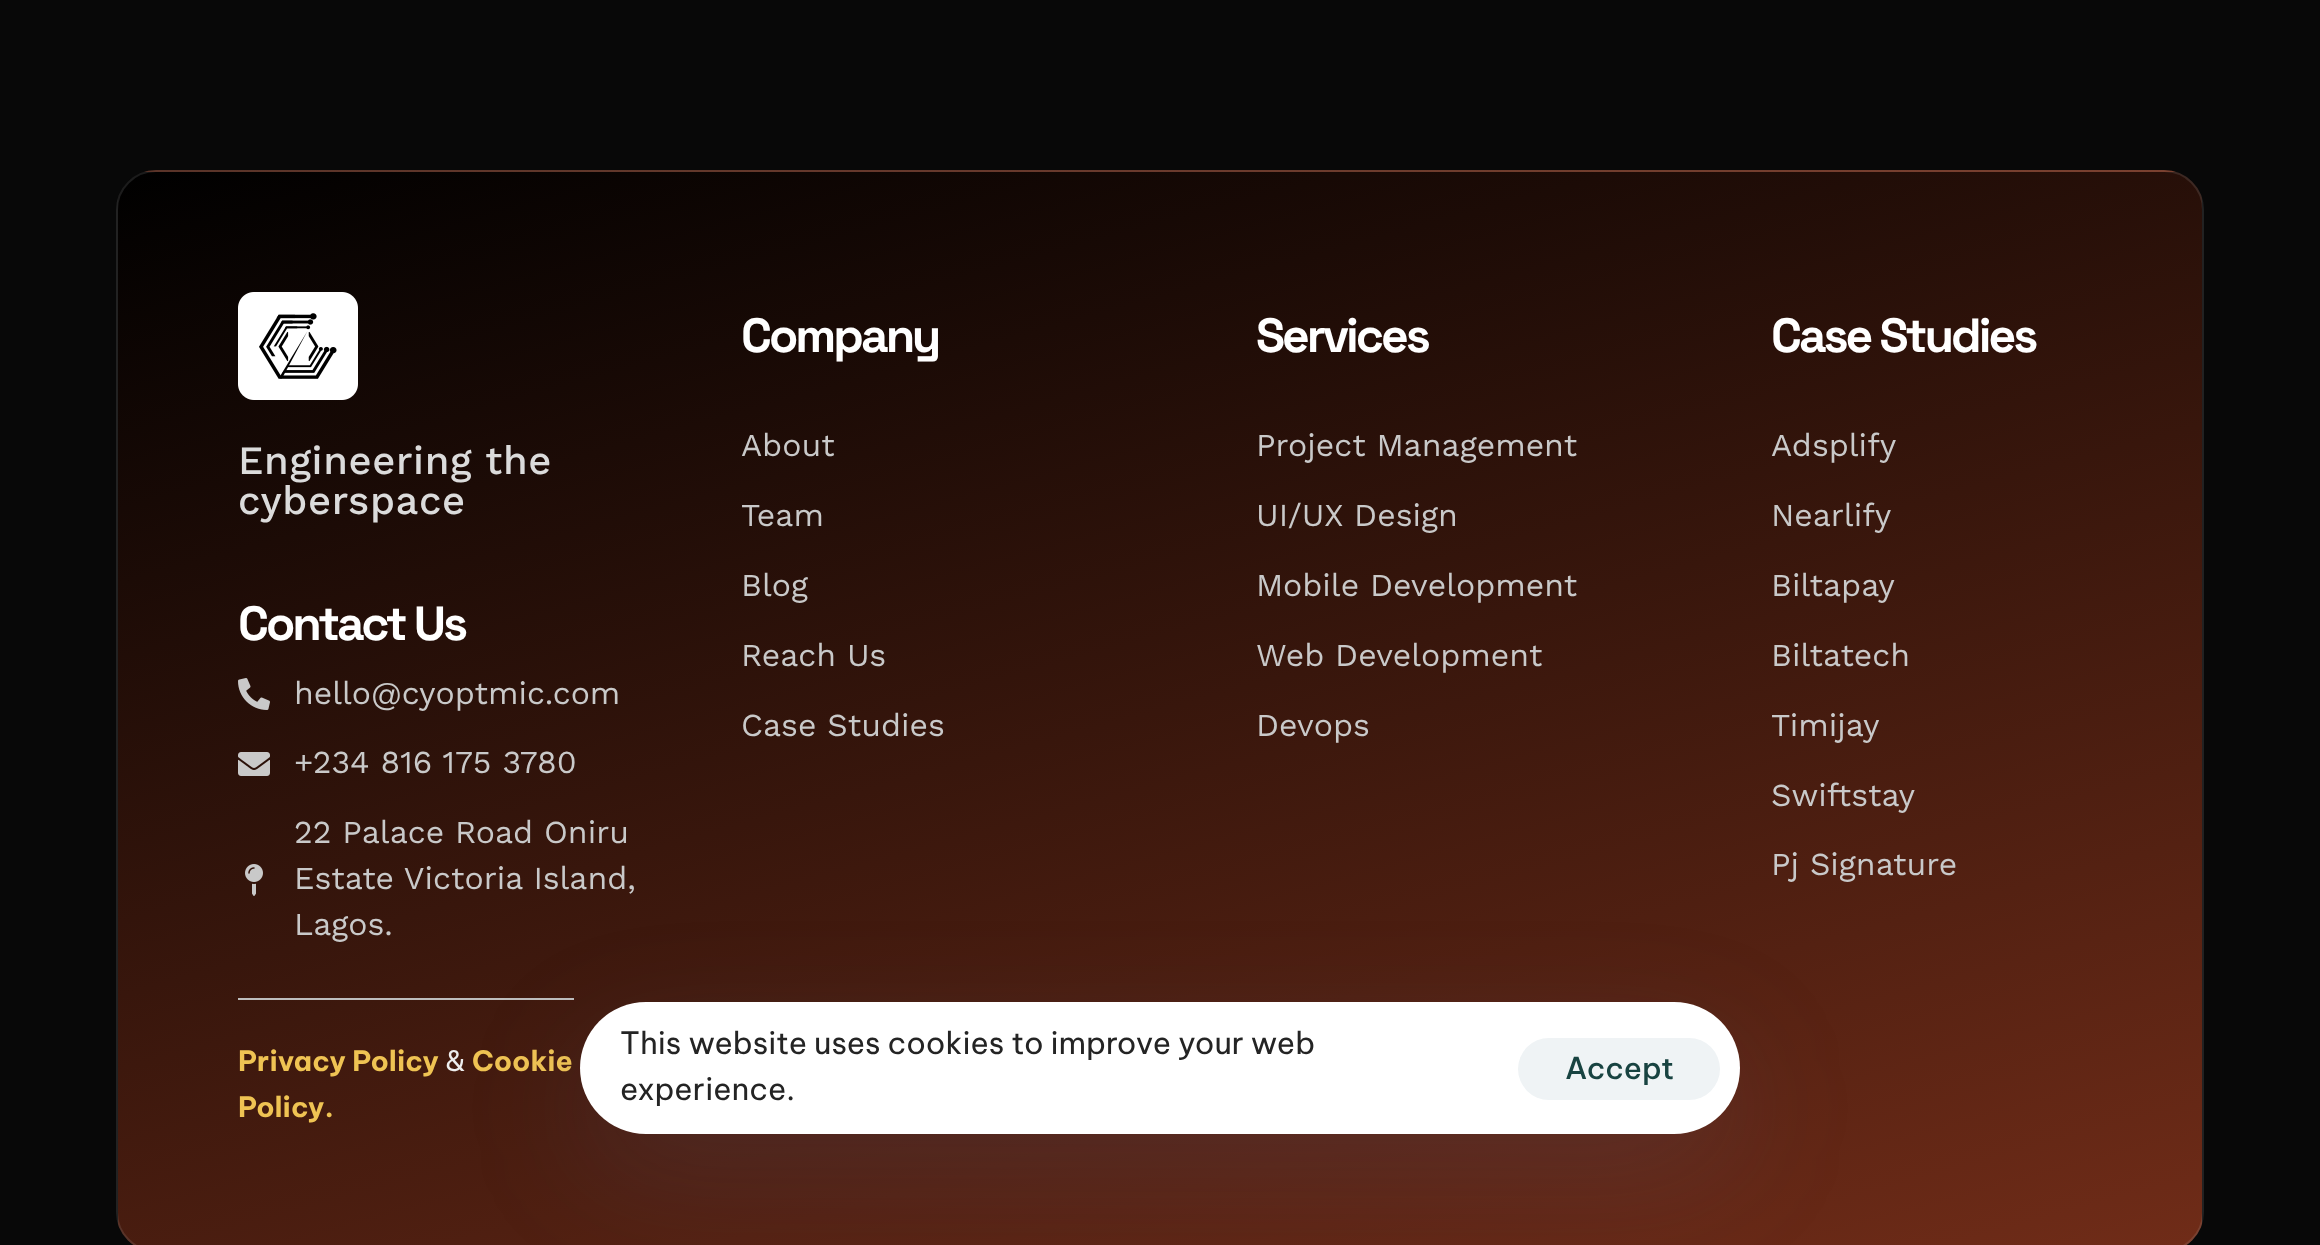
<svg xmlns="http://www.w3.org/2000/svg" width="2320" height="1245">
	<defs>
		<clipPath id="clip1"><rect x="116" y="170" width="2088" height="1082" rx="40" /></clipPath>
		<linearGradient id="g1" gradientUnits="userSpaceOnUse" x1="950" y1="-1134" x2="1370" y2="400"><stop offset="0" stop-color="#000000" /><stop offset="1" stop-color="#702C18" /></linearGradient>
		<linearGradient id="g2" gradientUnits="userSpaceOnUse" x1="950" y1="-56" x2="1370" y2="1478"><stop offset="0" stop-color="#000000" /><stop offset="1" stop-color="#702C18" /></linearGradient>
	</defs>
	<rect width="100%" height="100%" fill="#080808" />
	<g clip-path="url(#clip1)">
		<rect x="143" y="170" width="2034" height="2" fill="url(#g1)" />
		<rect x="118" y="172" width="2084" height="1073" fill="url(#g2)" />
	</g>
	<rect x="117" y="171" width="2086" height="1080" rx="39" fill="none" stroke="#BBBBBB" stroke-opacity="0.15" stroke-width="2" />
	<image x="238" y="292" width="120" height="108" href="assets/img1.png" />
	<g font-family="Work Sans" font-size="40" font-weight="500" letter-spacing="0.6" fill="#DBDBDB">
		<text x="238" y="474">Engineering the</text>
		<text x="238" y="514">cyberspace</text>
	</g>
	<text x="238" y="640" font-family="Space Grotesk" font-size="48" font-weight="700" letter-spacing="-3" fill="#FFFFFF">Contact Us</text>
	<image x="238" y="678" width="32" height="32" href="assets/img2.png" />
	<text x="294" y="704" font-family="Work Sans" font-size="32" fill="#C9C9C9">hello@cyoptmic.com</text>
	<image x="238" y="752" width="32" height="24" href="assets/img3.png" />
	<g font-family="Work Sans" font-size="32" fill="#C9C9C9">
		<text x="294" y="773">+234 816 175 3780</text>
		<text x="294" y="843">22 Palace Road Oniru</text>
	</g>
	<image x="245" y="864" width="18" height="32" href="assets/img4.png" />
	<g font-family="Work Sans" font-size="32" fill="#C9C9C9">
		<text x="294" y="889">Estate Victoria Island,</text>
		<text x="294" y="935">Lagos.</text>
	</g>
	<rect x="238" y="998" width="336" height="2" fill="#BEBEBE" />
	<text x="238" y="1071" font-family="Be Vietnam Pro" font-size="28" font-weight="700" fill="#EFC353">Privacy Policy</text>
	<text x="445" y="1071" font-family="Be Vietnam Pro" font-size="28" fill="#EEEEEE">&amp;</text>
	<g font-family="Be Vietnam Pro" font-size="28" font-weight="700" fill="#EFC353">
		<text x="472" y="1071">Cookie</text>
		<text x="238" y="1117">Policy.</text>
	</g>
	<text x="741" y="352" font-family="Space Grotesk" font-size="48" font-weight="700" letter-spacing="-3" fill="#FFFFFF">Company</text>
	<g font-family="Work Sans" font-size="32" fill="#C9C9C9">
		<text x="741" y="456">About</text>
		<text x="741" y="526">Team</text>
		<text x="741" y="596">Blog</text>
		<text x="741" y="666">Reach Us</text>
		<text x="741" y="736">Case Studies</text>
	</g>
	<text x="1256" y="352" font-family="Space Grotesk" font-size="48" font-weight="700" letter-spacing="-3" fill="#FFFFFF">Services</text>
	<g font-family="Work Sans" font-size="32" fill="#C9C9C9">
		<text x="1256" y="456">Project Management</text>
		<text x="1256" y="526">UI/UX Design</text>
		<text x="1256" y="596">Mobile Development</text>
		<text x="1256" y="666">Web Development</text>
		<text x="1256" y="736">Devops</text>
	</g>
	<text x="1771" y="352" font-family="Space Grotesk" font-size="48" font-weight="700" letter-spacing="-3" fill="#FFFFFF">Case Studies</text>
	<g font-family="Work Sans" font-size="32" fill="#C9C9C9">
		<text x="1771" y="456">Adsplify</text>
		<text x="1771" y="526">Nearlify</text>
		<text x="1771" y="596">Biltapay</text>
		<text x="1771" y="666">Biltatech</text>
		<text x="1771" y="736">Timijay</text>
		<text x="1771" y="806">Swiftstay</text>
		<text x="1771" y="875">Pj Signature</text>
	</g>
	<rect x="580" y="1042" width="1160" height="132" rx="66" fill="#5C6B95" fill-opacity="0.15" filter="blur(60px)" />
	<rect x="580" y="1002" width="1160" height="132" rx="66" fill="#FFFFFF" />
	<g font-family="Be Vietnam Pro" font-size="30.6" fill="#242424">
		<text x="620" y="1054">This website uses cookies to improve your web</text>
		<text x="620" y="1100">experience.</text>
	</g>
	<rect x="1518" y="1038" width="202" height="62" rx="31" fill="#EFF3F5" />
	<text x="1565" y="1079" font-family="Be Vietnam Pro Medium" font-size="30" font-weight="500" fill="#184341">Accept</text>
</svg>
